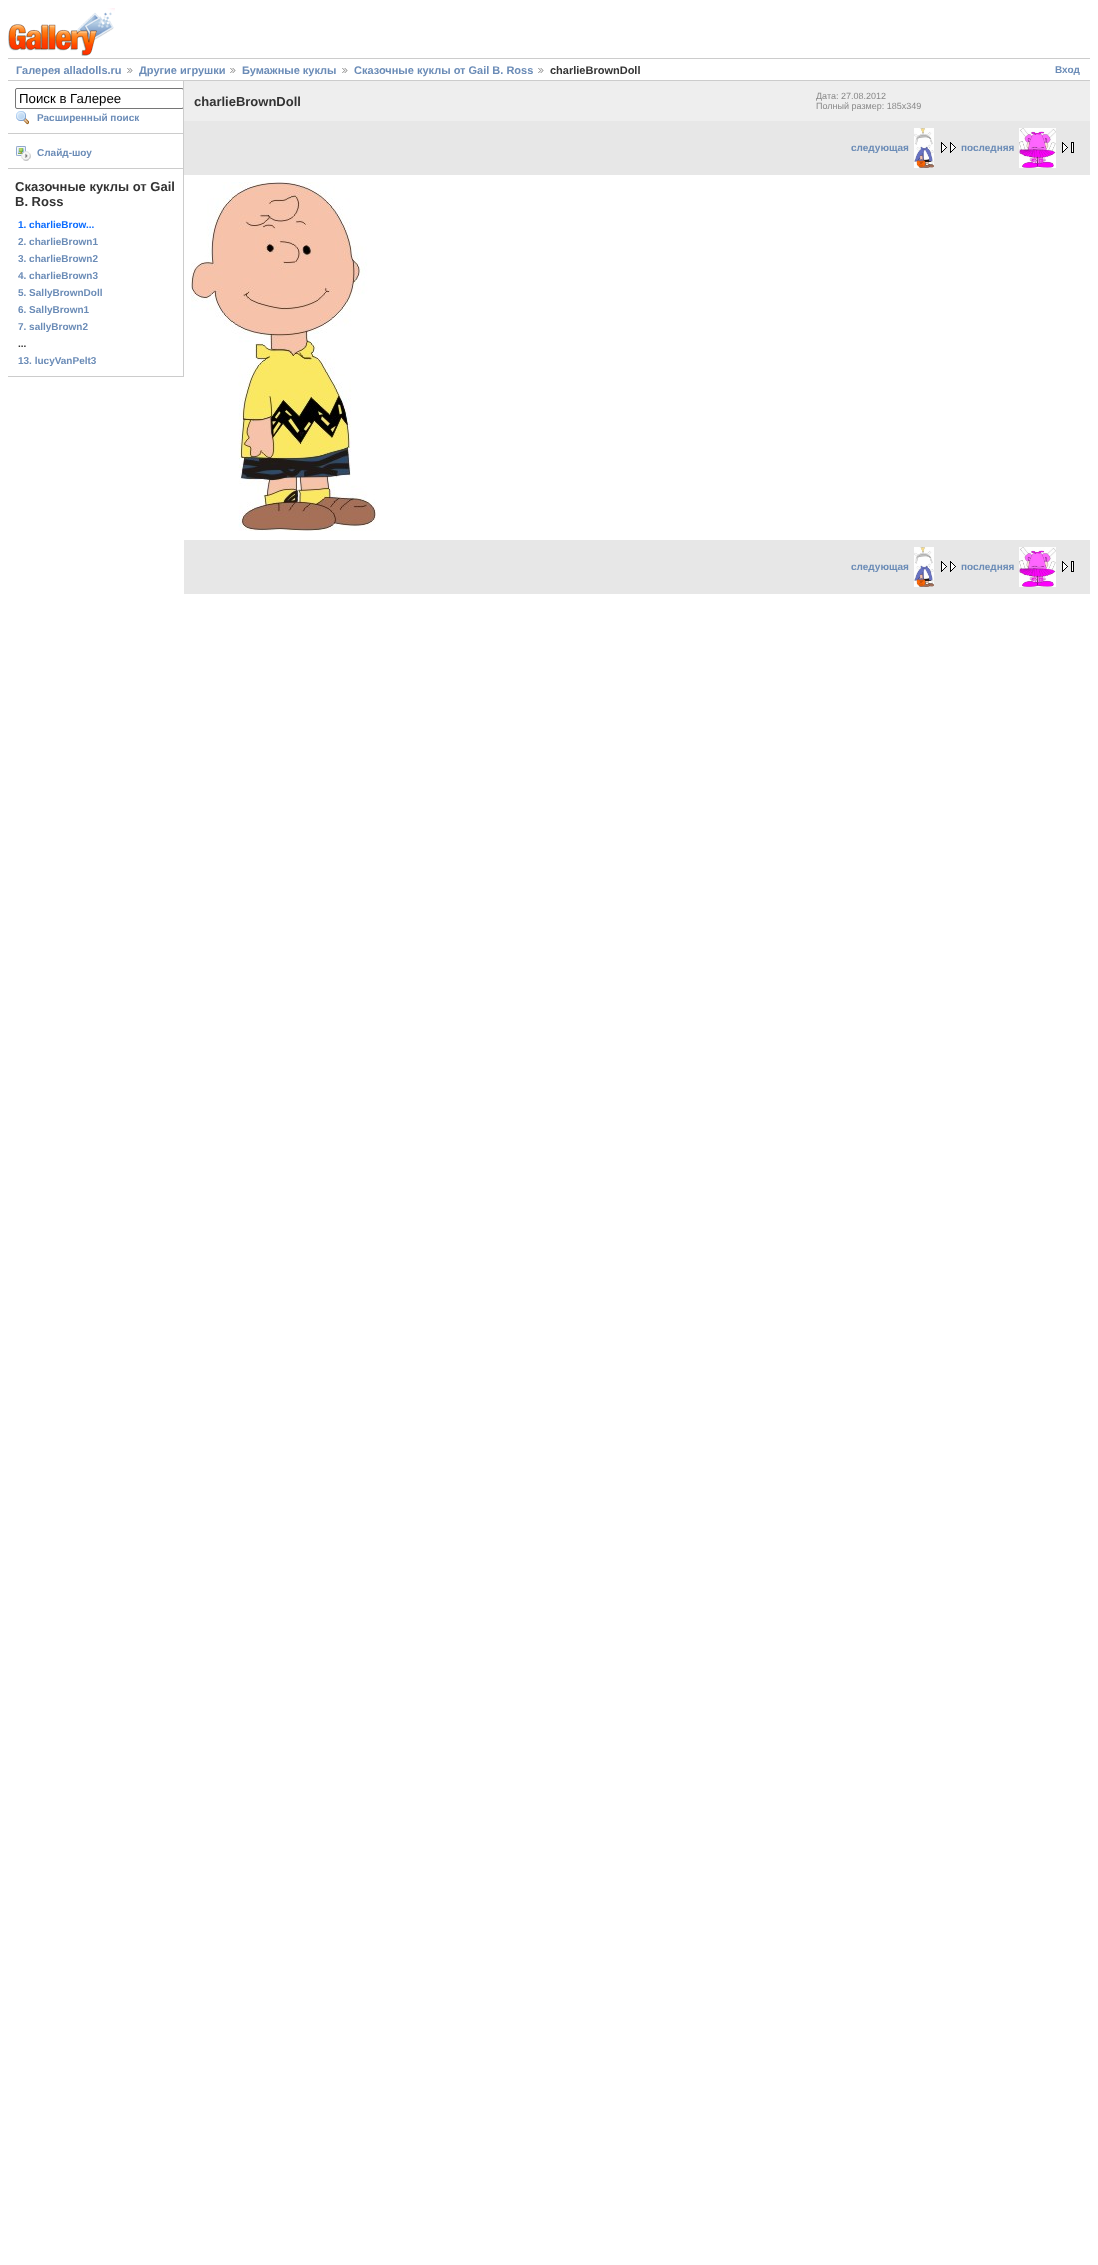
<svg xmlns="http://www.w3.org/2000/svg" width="1098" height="2265">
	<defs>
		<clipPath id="clip1"><rect x="8" y="81" width="175" height="296" /></clipPath>
	</defs>
	<rect width="100%" height="100%" fill="#FFFFFF" />
	<image x="8" y="8" width="107" height="48" href="assets/img1.png" />
	<rect x="8" y="58" width="1082" height="1" fill="#CCCCCC" />
	<rect x="8" y="80" width="1082" height="1" fill="#CCCCCC" />
	<text x="16" y="74" font-family="Liberation Sans" font-size="11" font-weight="700" fill="#6B8CB7">Галерея alladolls.ru</text>
	<image x="127" y="68" width="6" height="5" href="assets/img2.png" />
	<text x="139" y="74" font-family="Liberation Sans" font-size="11" font-weight="700" fill="#6B8CB7">Другие игрушки</text>
	<image x="230" y="68" width="6" height="5" href="assets/img2.png" />
	<text x="242" y="74" font-family="Liberation Sans" font-size="11" font-weight="700" fill="#6B8CB7">Бумажные куклы</text>
	<image x="342" y="68" width="6" height="5" href="assets/img2.png" />
	<text x="354" y="74" font-family="Liberation Sans" font-size="11" font-weight="700" fill="#6B8CB7">Сказочные куклы от Gail B. Ross</text>
	<image x="538" y="68" width="6" height="5" href="assets/img2.png" />
	<text x="550" y="74" font-family="Liberation Sans" font-size="11" font-weight="700" fill="#333333">charlieBrownDoll</text>
	<text x="1055" y="73" font-family="Liberation Sans" font-size="10" font-weight="700" fill="#6B8CB7">Вход</text>
	<rect x="183" y="81" width="1" height="296" fill="#CCCCCC" />
	<rect x="8" y="133" width="175" height="1" fill="#CCCCCC" />
	<g clip-path="url(#clip1)">
		<rect x="15.5" y="88.5" width="168" height="20" rx="1.5" fill="none" stroke="#767676" />
	</g>
	<text x="19" y="103" font-family="Liberation Sans" font-size="13.25" fill="#000000">Поиск в Галерее</text>
	<image x="16" y="111" width="13" height="14" href="assets/img3.png" />
	<text x="37" y="121" font-family="Liberation Sans" font-size="10" font-weight="700" fill="#6B8CB7">Расширенный поиск</text>
	<rect x="8" y="168" width="175" height="1" fill="#CCCCCC" />
	<image x="16" y="146" width="15" height="15" href="assets/img4.png" />
	<text x="37" y="156" font-family="Liberation Sans" font-size="10" font-weight="700" fill="#6B8CB7">Слайд-шоу</text>
	<rect x="8" y="376" width="175" height="1" fill="#CCCCCC" />
	<g font-family="Liberation Sans" font-size="13" font-weight="700" fill="#333333">
		<text x="15" y="191">Сказочные куклы от Gail</text>
		<text x="15" y="206">B. Ross</text>
	</g>
	<text x="18" y="228" font-family="Liberation Sans" font-size="10" font-weight="700" fill="#0B6CFF">1. charlieBrow...</text>
	<g font-family="Liberation Sans" font-size="10" font-weight="700" fill="#6B8CB7">
		<text x="18" y="245">2. charlieBrown1</text>
		<text x="18" y="262">3. charlieBrown2</text>
		<text x="18" y="279">4. charlieBrown3</text>
		<text x="18" y="296">5. SallyBrownDoll</text>
		<text x="18" y="313">6. SallyBrown1</text>
		<text x="18" y="330">7. sallyBrown2</text>
	</g>
	<text x="18" y="347" font-family="Liberation Sans" font-size="10" font-weight="700" fill="#333333">...</text>
	<text x="18" y="364" font-family="Liberation Sans" font-size="10" font-weight="700" fill="#6B8CB7">13. lucyVanPelt3</text>
	<rect x="184" y="81" width="906" height="40" fill="#EEEEEE" />
	<text x="194" y="106" font-family="Liberation Sans" font-size="13" font-weight="700" fill="#333333">charlieBrownDoll</text>
	<g font-family="Liberation Sans" font-size="9" fill="#888888">
		<text x="816" y="99">Дата: 27.08.2012</text>
		<text x="816" y="109">Полный размер: 185x349</text>
	</g>
	<rect x="184" y="121" width="906" height="54" fill="#E7E7E7" />
	<text x="851" y="151" font-family="Liberation Sans" font-size="10" font-weight="700" fill="#6B8CB7">следующая</text>
	<image x="914" y="128" width="20" height="40" href="assets/img5.png" />
	<image x="941" y="142" width="15" height="11" href="assets/img6.png" />
	<text x="961" y="151" font-family="Liberation Sans" font-size="10" font-weight="700" fill="#6B8CB7">последняя</text>
	<image x="1019" y="128" width="37" height="40" href="assets/img7.png" />
	<image x="1062" y="142" width="12" height="11" href="assets/img8.png" />
	<image x="191" y="182" width="185" height="349" href="assets/img9.png" />
	<rect x="184" y="540" width="906" height="54" fill="#E7E7E7" />
	<text x="851" y="570" font-family="Liberation Sans" font-size="10" font-weight="700" fill="#6B8CB7">следующая</text>
	<image x="914" y="547" width="20" height="40" href="assets/img10.png" />
	<image x="941" y="561" width="15" height="11" href="assets/img6.png" />
	<text x="961" y="570" font-family="Liberation Sans" font-size="10" font-weight="700" fill="#6B8CB7">последняя</text>
	<image x="1019" y="547" width="37" height="40" href="assets/img11.png" />
	<image x="1062" y="561" width="12" height="11" href="assets/img8.png" />
</svg>
